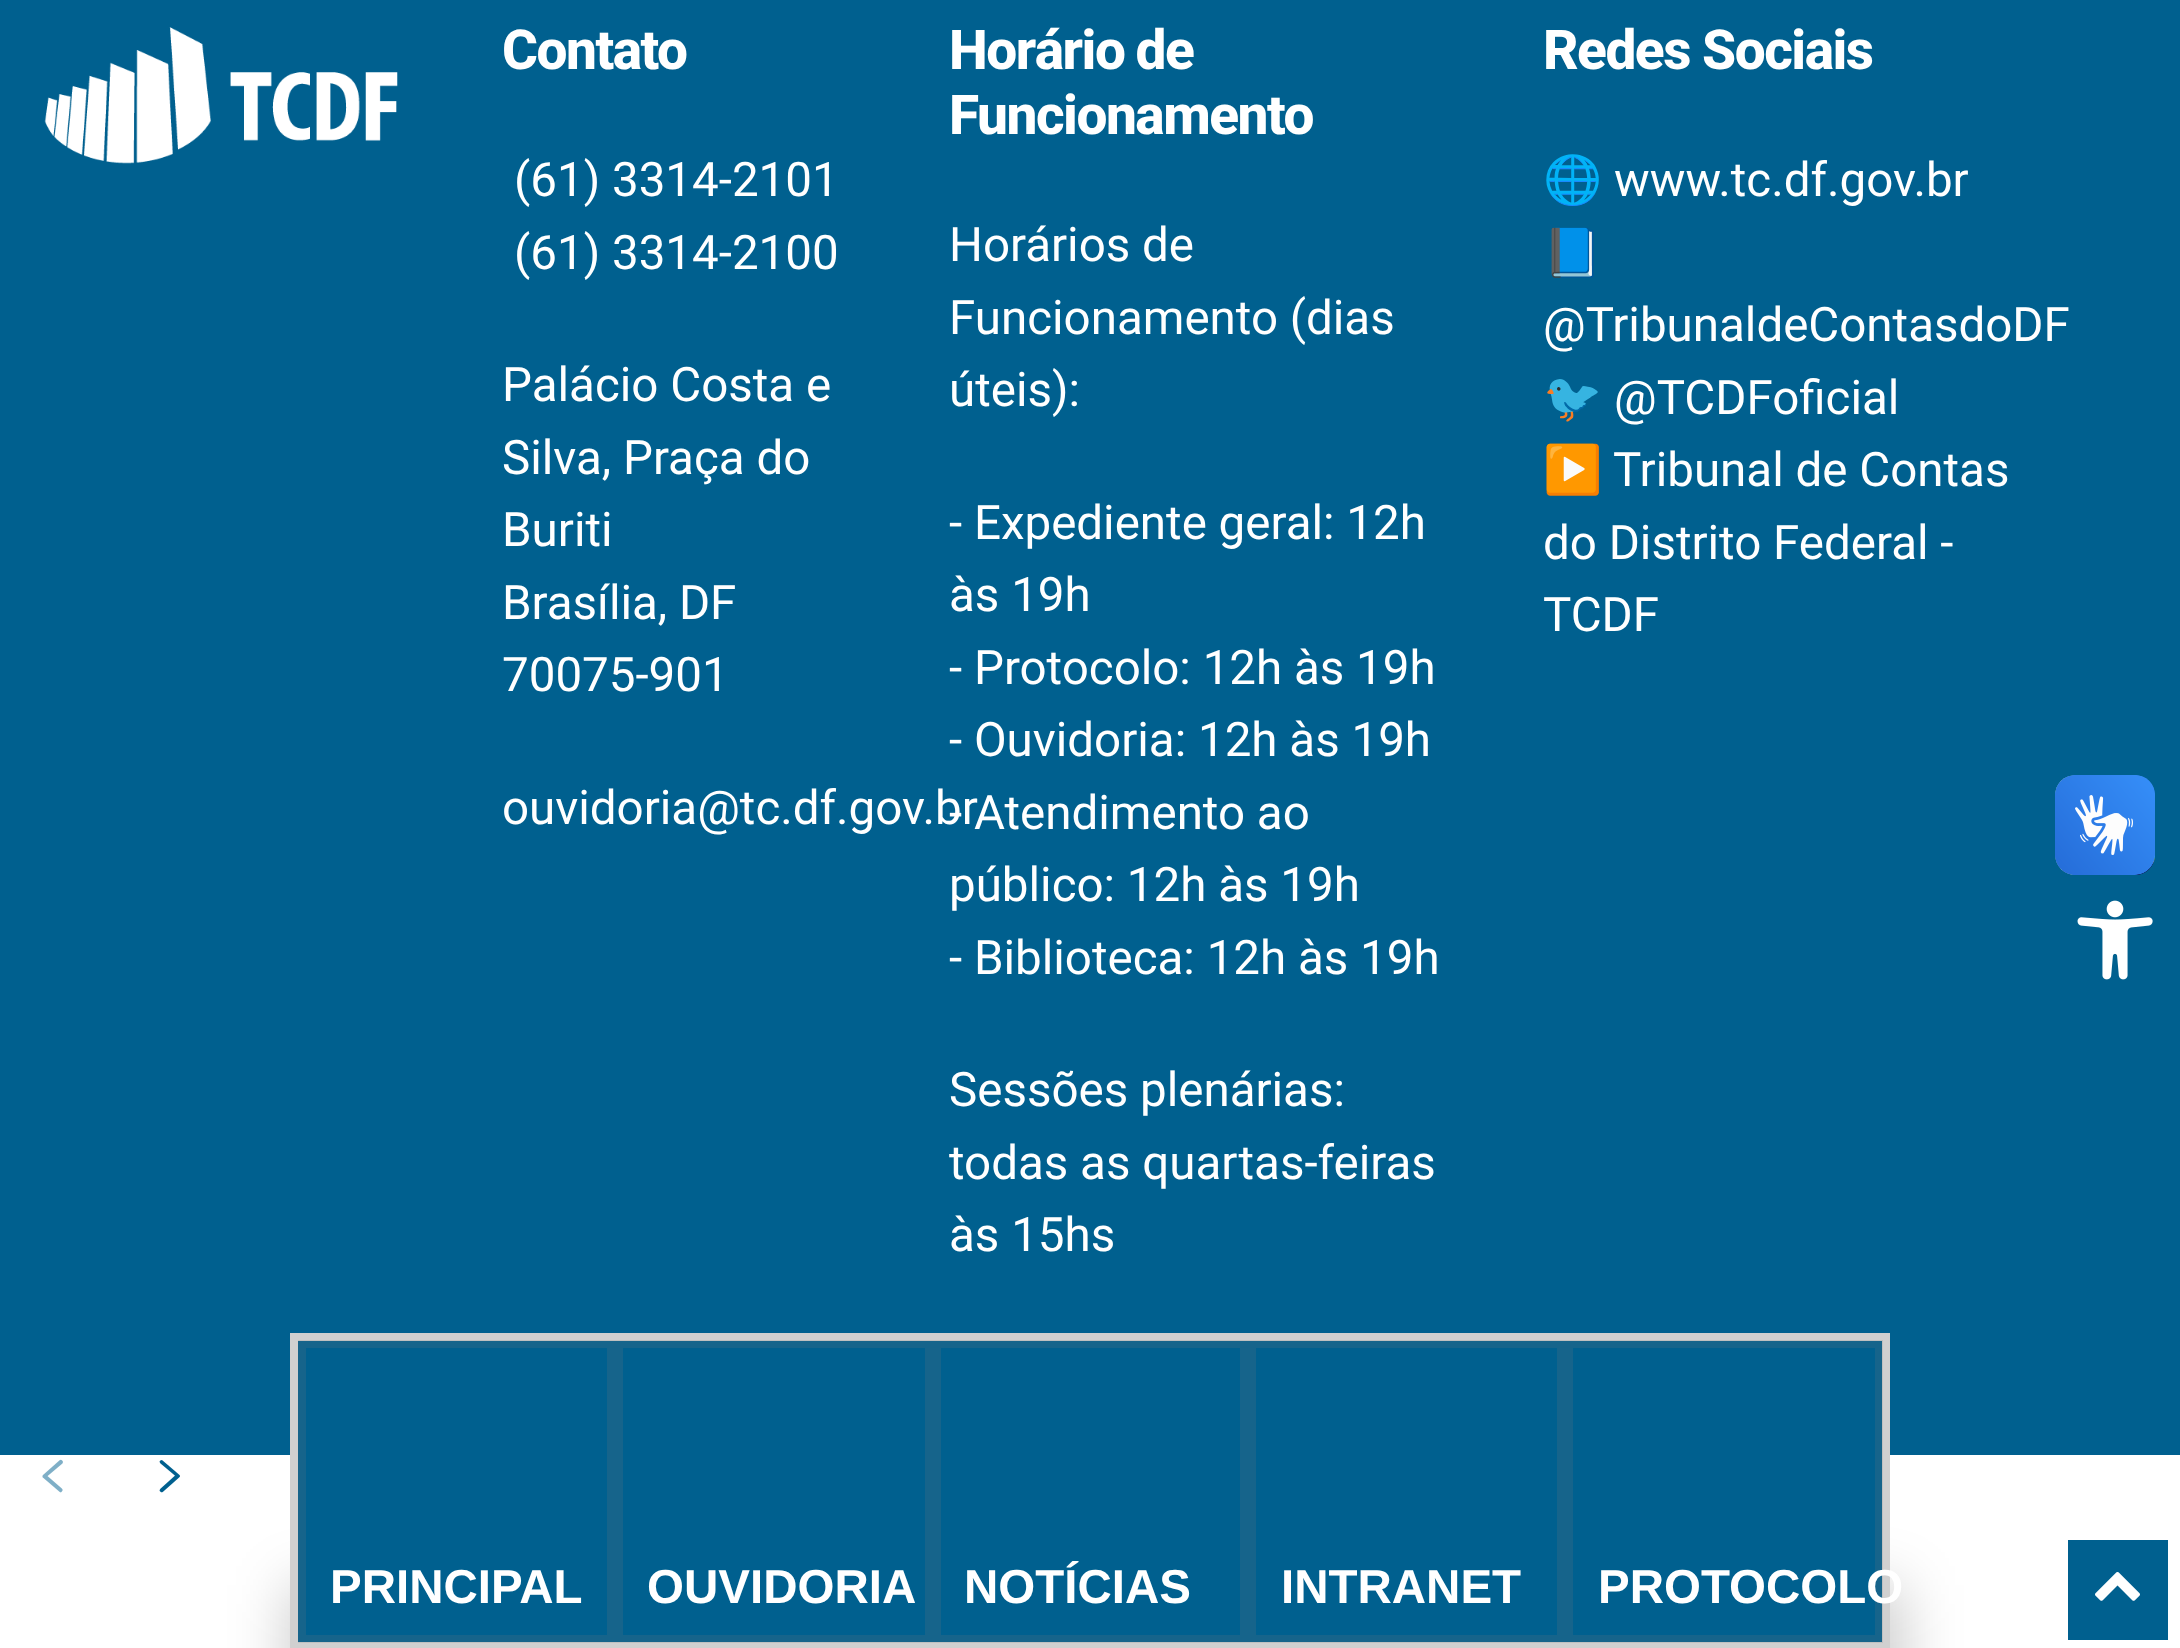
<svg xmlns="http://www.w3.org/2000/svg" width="2180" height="1648">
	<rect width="100%" height="100%" fill="#FFFFFF" />
	<rect x="0" y="0" width="2180" height="1455" fill="#00608F" />
	<image x="44" y="27" width="354" height="137" href="assets/img1.png" />
	<text x="502" y="69" font-family="Roboto" font-size="55" font-weight="800" letter-spacing="-1.5" fill="#FFFFFF">Contato</text>
	<g font-family="Roboto" font-size="47.5" fill="#FFFFFF">
		<text x="514" y="196">(61) 3314-2101</text>
		<text x="514" y="269">(61) 3314-2100</text>
		<text x="502" y="401">Palácio Costa e</text>
		<text x="502" y="474">Silva, Praça do</text>
		<text x="502" y="546">Buriti</text>
		<text x="502" y="619">Brasília, DF</text>
		<text x="502" y="691">70075-901</text>
		<text x="502" y="824">ouvidoria@tc.df.gov.br</text>
	</g>
	<g font-family="Roboto" font-size="55" font-weight="800" letter-spacing="-1.5" fill="#FFFFFF">
		<text x="949" y="69" word-spacing="-1">Horário de</text>
		<text x="949" y="134">Funcionamento</text>
	</g>
	<g font-family="Roboto" font-size="47.5" fill="#FFFFFF">
		<text x="949" y="261">Horários de</text>
		<text x="949" y="334">Funcionamento (dias</text>
		<text x="949" y="406">úteis):</text>
		<text x="949" y="539">- Expediente geral: 12h</text>
		<text x="949" y="611">às 19h</text>
		<text x="949" y="684">- Protocolo: 12h às 19h</text>
		<text x="949" y="756">- Ouvidoria: 12h às 19h</text>
		<text x="949" y="829">- Atendimento ao</text>
		<text x="949" y="901">público: 12h às 19h</text>
		<text x="949" y="974">- Biblioteca: 12h às 19h</text>
		<text x="949" y="1106">Sessões plenárias:</text>
		<text x="949" y="1179">todas as quartas-feiras</text>
		<text x="949" y="1251">às 15hs</text>
	</g>
	<text x="1543" y="69" font-family="Roboto" font-size="55" font-weight="800" letter-spacing="-1.5" fill="#FFFFFF">Redes Sociais</text>
	<text x="1543" y="196" font-family="Noto Color Emoji" font-size="47.5" fill="#FFFFFF">🌐</text>
	<text x="1614" y="196" font-family="Roboto" font-size="47.5" fill="#FFFFFF">www.tc.df.gov.br</text>
	<text x="1543" y="269" font-family="Noto Color Emoji" font-size="47.5" fill="#FFFFFF">📘</text>
	<text x="1543" y="341" font-family="Roboto" font-size="47.5" fill="#FFFFFF">@TribunaldeContasdoDF</text>
	<text x="1543" y="414" font-family="Noto Color Emoji" font-size="47.5" fill="#FFFFFF">🐦</text>
	<text x="1614" y="414" font-family="Roboto" font-size="47.5" fill="#FFFFFF">@TCDFoficial</text>
	<text x="1543" y="486" font-family="Noto Color Emoji" font-size="47.5" fill="#FFFFFF">▶️</text>
	<g font-family="Roboto" font-size="47.5" fill="#FFFFFF">
		<text x="1613" y="486">Tribunal de Contas</text>
		<text x="1543" y="559">do Distrito Federal -</text>
		<text x="1543" y="631">TCDF</text>
	</g>
	<image x="42" y="1459" width="21" height="34" href="assets/img2.png" />
	<image x="159" y="1460" width="21" height="33" href="assets/img3.png" />
	<image x="2055" y="775" width="100" height="100" href="assets/img4.png" />
	<image x="2055" y="775" width="100" height="100" href="assets/img5.png" />
	<image x="2077" y="900" width="76" height="80" href="assets/img6.png" />
	<rect x="288" y="1585" width="1615" height="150" fill="#000000" fill-opacity="0.2" filter="blur(29px)" />
	<rect x="298" y="1455" width="1584" height="187" fill="#00608F" />
	<rect x="294" y="1337" width="1592" height="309" fill="none" stroke="#D0D0D0" stroke-width="8" />
	<rect x="302" y="1344" width="309" height="295" fill="none" stroke="#7A7A7A" stroke-opacity="0.18" stroke-width="8" />
	<text x="330" y="1603" font-family="Liberation Sans" font-size="47.5" font-weight="700" fill="#FFFFFF">PRINCIPAL</text>
	<rect x="619" y="1344" width="310" height="295" fill="none" stroke="#7A7A7A" stroke-opacity="0.18" stroke-width="8" />
	<text x="647" y="1603" font-family="Liberation Sans" font-size="47.5" font-weight="700" fill="#FFFFFF">OUVIDORIA</text>
	<rect x="937" y="1344" width="307" height="295" fill="none" stroke="#7A7A7A" stroke-opacity="0.18" stroke-width="8" />
	<text x="964" y="1603" font-family="Liberation Sans" font-size="47.5" font-weight="700" fill="#FFFFFF">NOTÍCIAS</text>
	<rect x="1252" y="1344" width="309" height="295" fill="none" stroke="#7A7A7A" stroke-opacity="0.18" stroke-width="8" />
	<text x="1281" y="1603" font-family="Liberation Sans" font-size="47.5" font-weight="700" fill="#FFFFFF">INTRANET</text>
	<rect x="1569" y="1344" width="310" height="295" fill="none" stroke="#7A7A7A" stroke-opacity="0.18" stroke-width="8" />
	<text x="1598" y="1603" font-family="Liberation Sans" font-size="47.5" font-weight="700" fill="#FFFFFF">PROTOCOLO</text>
	<rect x="2068" y="1540" width="100" height="100" fill="#00608F" />
	<image x="2095" y="1572" width="45" height="29" href="assets/img7.png" />
</svg>
